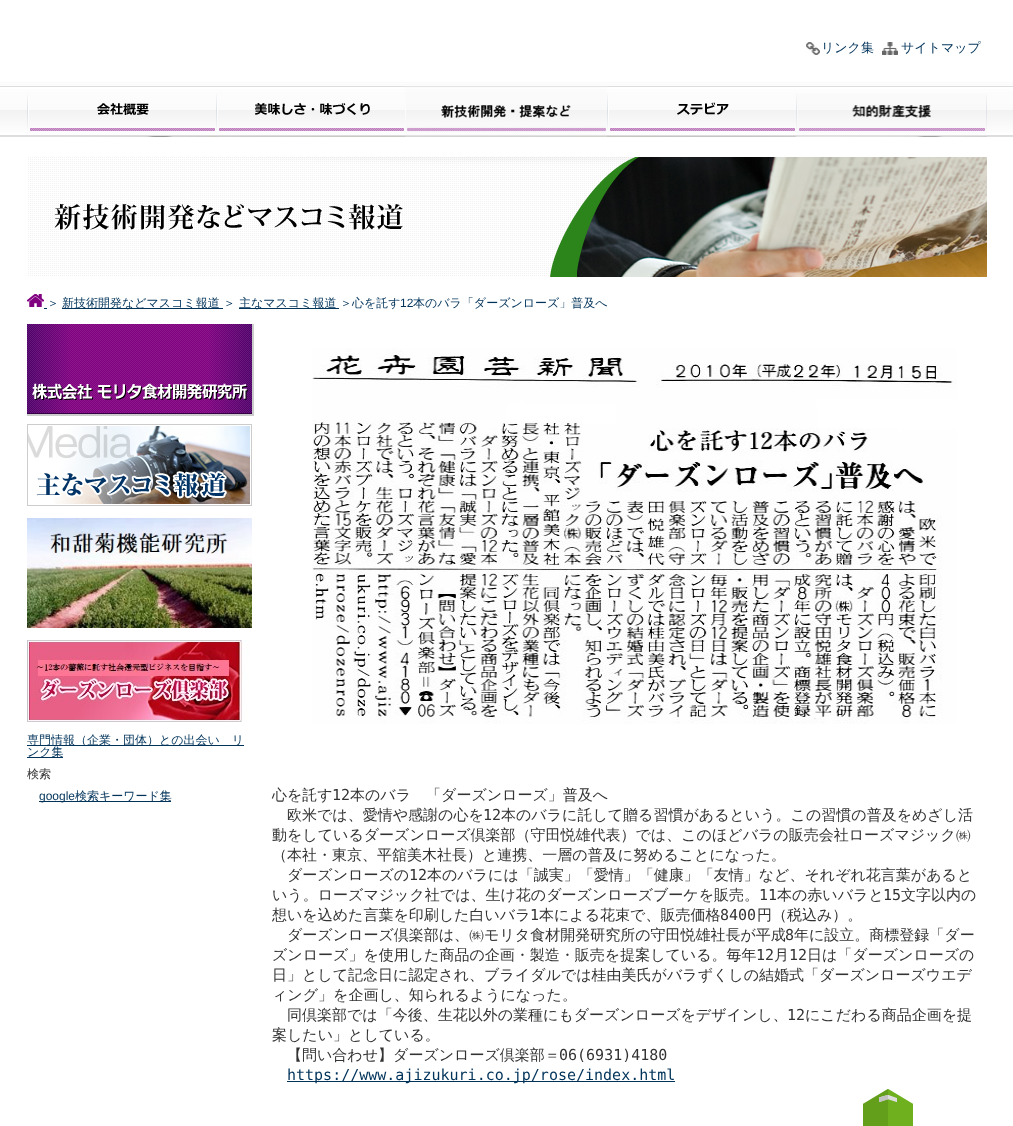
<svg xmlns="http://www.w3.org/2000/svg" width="1013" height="1126">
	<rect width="100%" height="100%" fill="#FFFFFF" />
	<image x="0" y="82" width="1013" height="55" href="assets/img1.png" />
	<image x="806" y="42" width="14" height="13" href="assets/img2.png" />
	<text x="821" y="52" font-family="WenQuanYi Zen Hei" font-size="13" font-weight="500" fill="#00335A">リンク集</text>
	<image x="882" y="42" width="16" height="13" href="assets/img3.png" />
	<text x="901" y="52" font-family="WenQuanYi Zen Hei" font-size="13" font-weight="500" fill="#00335A">サイトマップ</text>
	<image x="27" y="94" width="190" height="43" href="assets/img4.png" />
	<image x="217" y="103" width="188" height="34" href="assets/img5.png" />
	<image x="405" y="86" width="202" height="51" href="assets/img6.png" />
	<image x="607" y="94" width="189" height="43" href="assets/img7.png" />
	<image x="796" y="94" width="191" height="43" href="assets/img8.png" />
	<image x="28" y="157" width="959" height="120" href="assets/img9.png" />
	<image x="27" y="294" width="17" height="13" href="assets/img10.png" />
	<text x="47" y="307" font-family="WenQuanYi Zen Hei" font-size="12" font-weight="500" fill="#00335A">＞</text>
	<rect x="62" y="308" width="161" height="1" fill="#003359" />
	<text x="62" y="307" font-family="WenQuanYi Zen Hei" font-size="12" font-weight="500" fill="#00335A">新技術開発などマスコミ報道 ＞</text>
	<rect x="239" y="308" width="100" height="1" fill="#003359" />
	<text x="239" y="307" font-family="WenQuanYi Zen Hei" font-size="12" font-weight="500" fill="#00335A">主なマスコミ報道 ＞心を託す</text>
	<text x="400" y="307" font-family="Liberation Sans" font-size="12" fill="#00335A">12</text>
	<text x="413" y="307" font-family="WenQuanYi Zen Hei" font-size="12" font-weight="500" fill="#00335A">本のバラ「ダーズンローズ」普及へ</text>
	<rect x="44" y="308" width="3" height="1" fill="#003359" />
	<rect x="27" y="324" width="227" height="92" fill="#CCCCCC" filter="blur(0.5px)" />
	<image x="27" y="324" width="225" height="90" href="assets/img11.png" />
	<image x="27" y="424" width="225" height="82" href="assets/img12.png" />
	<image x="27" y="518" width="225" height="110" href="assets/img13.png" />
	<image x="27" y="640" width="222" height="82" href="assets/img14.png" />
	<rect x="27" y="745" width="217" height="1" fill="#00335A" />
	<text x="27" y="744" font-family="WenQuanYi Zen Hei" font-size="12" font-weight="500" fill="#00335A">専門情報（企業・団体）との出会い　リ</text>
	<rect x="27" y="757" width="36" height="1" fill="#00335A" />
	<text x="27" y="756" font-family="WenQuanYi Zen Hei" font-size="12" font-weight="500" fill="#00335A">ンク集</text>
	<text x="27" y="778" font-family="WenQuanYi Zen Hei" font-size="12" font-weight="500" fill="#333333">検索</text>
	<rect x="39" y="801" width="132" height="1" fill="#00335A" />
	<text x="39" y="800" font-family="Liberation Sans" font-size="12" fill="#00335A">google</text>
	<text x="75" y="800" font-family="WenQuanYi Zen Hei" font-size="12" font-weight="500" fill="#00335A">検索キーワード集</text>
	<image x="312" y="348" width="645" height="376" href="assets/img15.png" />
	<text x="272" y="800" font-family="WenQuanYi Zen Hei" font-size="15" font-weight="500" fill="#333333">心を託す</text>
	<text x="332" y="800" font-family="DejaVu Sans Mono" font-size="15" fill="#333333">12</text>
	<g font-family="WenQuanYi Zen Hei" font-size="15" font-weight="500" fill="#333333">
		<text x="350" y="800">本のバラ　「ダーズンローズ」普及へ</text>
		<text x="287" y="820">欧米では、愛情や感謝の心を</text>
	</g>
	<text x="483" y="820" font-family="DejaVu Sans Mono" font-size="15" fill="#333333">12</text>
	<g font-family="WenQuanYi Zen Hei" font-size="15" font-weight="500" fill="#333333">
		<text x="501" y="820">本のバラに託して贈る習慣があるという。この習慣の普及をめざし活</text>
		<text x="272" y="840">動をしているダーズンローズ倶楽部（守田悦雄代表）では、このほどバラの販売会社ローズマジック㈱</text>
		<text x="272" y="860">（本社・東京、平舘美木社長）と連携、一層の普及に努めることになった。</text>
		<text x="287" y="880">ダーズンローズの</text>
	</g>
	<text x="409" y="880" font-family="DejaVu Sans Mono" font-size="15" fill="#333333">12</text>
	<g font-family="WenQuanYi Zen Hei" font-size="15" font-weight="500" fill="#333333">
		<text x="427" y="880">本のバラには「誠実」「愛情」「健康」「友情」など、それぞれ花言葉があると</text>
		<text x="272" y="900">いう。ローズマジック社では、生け花のダーズンローズブーケを販売。</text>
	</g>
	<text x="759" y="900" font-family="DejaVu Sans Mono" font-size="15" fill="#333333">11</text>
	<text x="777" y="900" font-family="WenQuanYi Zen Hei" font-size="15" font-weight="500" fill="#333333">本の赤いバラと</text>
	<text x="883" y="900" font-family="DejaVu Sans Mono" font-size="15" fill="#333333">15</text>
	<g font-family="WenQuanYi Zen Hei" font-size="15" font-weight="500" fill="#333333">
		<text x="901" y="900">文字以内の</text>
		<text x="272" y="920">想いを込めた言葉を印刷した白いバラ</text>
	</g>
	<text x="530" y="920" font-family="DejaVu Sans Mono" font-size="15" fill="#333333">1</text>
	<text x="539" y="920" font-family="WenQuanYi Zen Hei" font-size="15" font-weight="500" fill="#333333">本による花束で、販売価格</text>
	<text x="720" y="920" font-family="DejaVu Sans Mono" font-size="15" fill="#333333">8400</text>
	<g font-family="WenQuanYi Zen Hei" font-size="15" font-weight="500" fill="#333333">
		<text x="757" y="920">円（税込み）。</text>
		<text x="287" y="940">ダーズンローズ倶楽部は、㈱モリタ食材開発研究所の守田悦雄社長が平成</text>
	</g>
	<text x="785" y="940" font-family="DejaVu Sans Mono" font-size="15" fill="#333333">8</text>
	<g font-family="WenQuanYi Zen Hei" font-size="15" font-weight="500" fill="#333333">
		<text x="794" y="940">年に設立。商標登録「ダー</text>
		<text x="272" y="960">ズンローズ」を使用した商品の企画・製造・販売を提案している。毎年</text>
	</g>
	<text x="756" y="960" font-family="DejaVu Sans Mono" font-size="15" fill="#333333">12</text>
	<text x="774" y="960" font-family="WenQuanYi Zen Hei" font-size="15" font-weight="500" fill="#333333">月</text>
	<text x="789" y="960" font-family="DejaVu Sans Mono" font-size="15" fill="#333333">12</text>
	<g font-family="WenQuanYi Zen Hei" font-size="15" font-weight="500" fill="#333333">
		<text x="807" y="960">日は「ダーズンローズの</text>
		<text x="272" y="980">日」として記念日に認定され、ブライダルでは桂由美氏がバラずくしの結婚式「ダーズンローズウエデ</text>
		<text x="272" y="1000">ィング」を企画し、知られるようになった。</text>
		<text x="287" y="1020">同倶楽部では「今後、生花以外の業種にもダーズンローズをデザインし、</text>
	</g>
	<text x="787" y="1020" font-family="DejaVu Sans Mono" font-size="15" fill="#333333">12</text>
	<g font-family="WenQuanYi Zen Hei" font-size="15" font-weight="500" fill="#333333">
		<text x="805" y="1020">にこだわる商品企画を提</text>
		<text x="272" y="1040">案したい」としている。</text>
		<text x="287" y="1060">【問い合わせ】ダーズンローズ倶楽部＝</text>
	</g>
	<text x="559" y="1060" font-family="DejaVu Sans Mono" font-size="15" fill="#333333">06(6931)4180</text>
	<rect x="287" y="1081" width="388" height="1" fill="#00335A" />
	<text x="287" y="1080" font-family="DejaVu Sans Mono" font-size="15" fill="#00335A">https://www.ajizukuri.co.jp/rose/index.html</text>
	<image x="863" y="1089" width="50" height="37" href="assets/img16.png" />
</svg>
